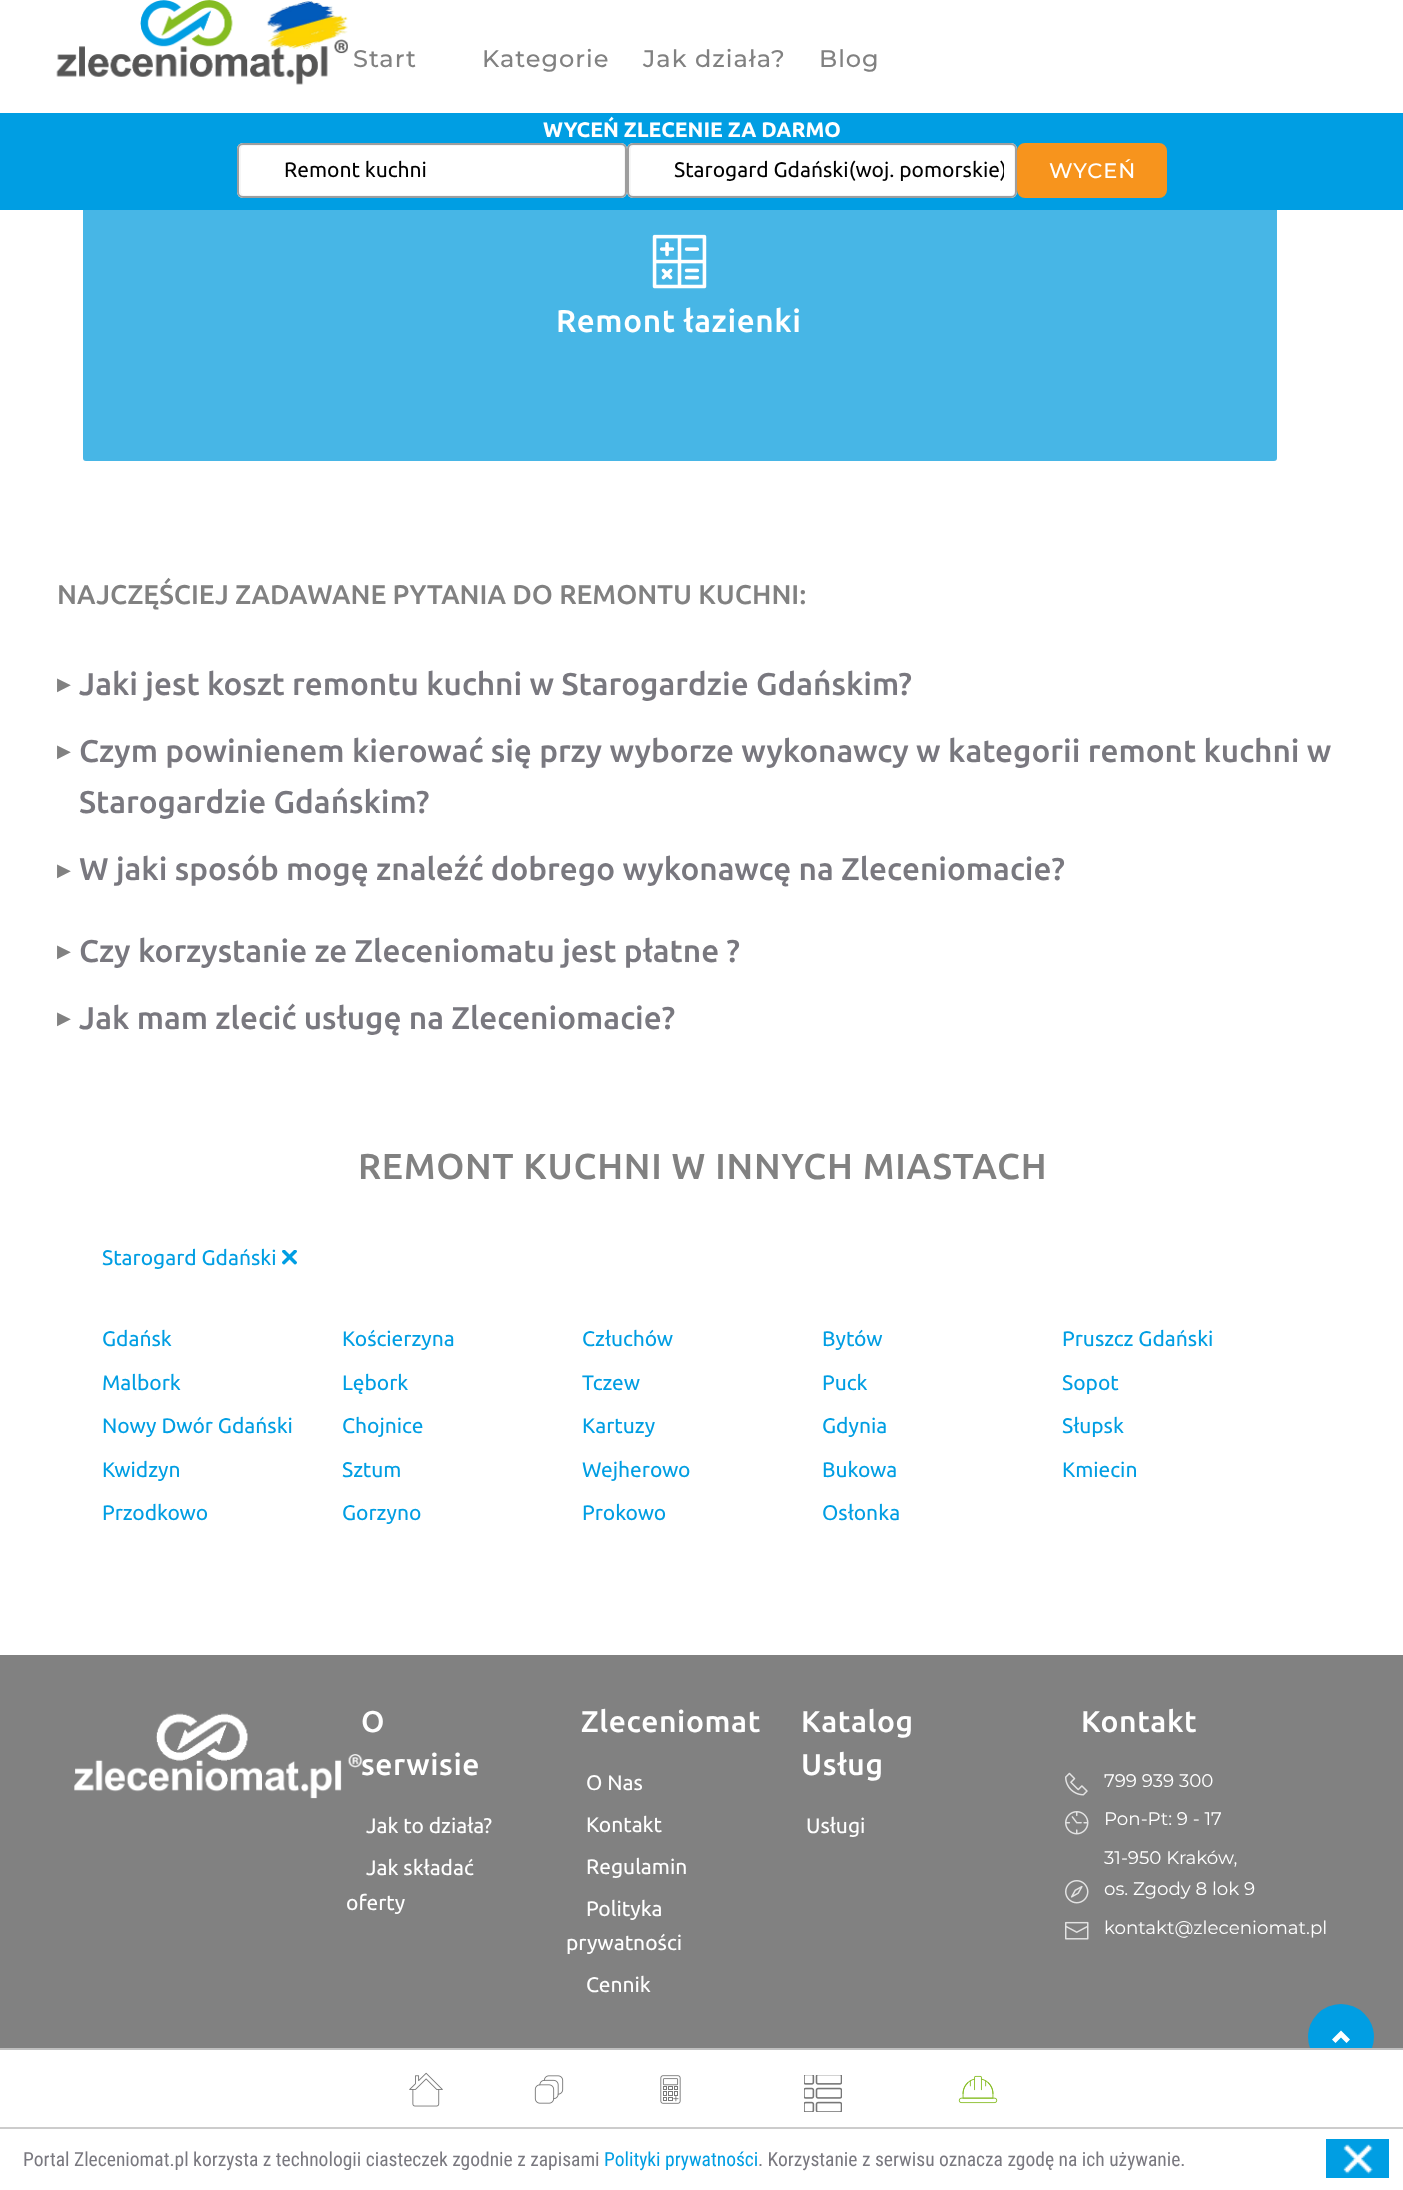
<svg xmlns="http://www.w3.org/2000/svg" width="1403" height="2190">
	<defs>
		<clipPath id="clip1"><rect x="674" y="155" width="330" height="31" /></clipPath>
	</defs>
	<rect width="100%" height="100%" fill="#FFFFFF" />
	<image x="56" y="0" width="292" height="85" href="assets/img1.png" />
	<g font-family="Montserrat" font-size="24" font-weight="500" letter-spacing="1" fill="#818181">
		<text x="353" y="67">Start</text>
		<text x="482" y="67">Kategorie</text>
		<text x="643" y="67">Jak działa?</text>
		<text x="819" y="67">Blog</text>
	</g>
	<rect x="83" y="116" width="1194" height="345" rx="3" fill="#EEEEEE" />
	<rect x="83" y="116" width="1194" height="345" rx="3" fill="#009EE3" fill-opacity="0.7" />
	<rect x="0" y="113" width="1403" height="97" fill="#009EE3" />
	<text x="543" y="137" font-family="Ubuntu" font-size="21" font-weight="700" fill="#FFFFFF">WYCEŃ ZLECENIE ZA DARMO</text>
	<rect x="237" y="143" width="390" height="55" rx="6" fill="#FFFFFF" />
	<rect x="240" y="145" width="385" height="51" rx="4" fill="none" stroke="#F6F6F6" stroke-width="2" />
	<rect x="238" y="144" width="388" height="53" rx="5" fill="none" stroke="#9E9E9E" stroke-width="2" />
	<text x="284" y="177" font-family="Ubuntu" font-size="21" fill="#000000">Remont kuchni</text>
	<rect x="627" y="143" width="390" height="55" rx="6" fill="#FFFFFF" />
	<rect x="630" y="145" width="385" height="51" rx="4" fill="none" stroke="#F6F6F6" stroke-width="2" />
	<rect x="628" y="144" width="388" height="53" rx="5" fill="none" stroke="#9E9E9E" stroke-width="2" />
	<g clip-path="url(#clip1)">
		<text x="674" y="177" font-family="Ubuntu" font-size="21" fill="#000000">Starogard Gdański(woj. pomorskie)</text>
	</g>
	<rect x="1018.5" y="144.5" width="147" height="52" rx="6.5" fill="#F7941D" stroke="#F7941D" stroke-width="3" />
	<text x="1049" y="178" font-family="Montserrat" font-size="21" font-weight="500" letter-spacing="1" fill="#FFFFFF">WYCEŃ</text>
	<rect x="0" y="1655" width="1403" height="393" fill="#818181" />
	<circle cx="1341" cy="2037" r="33" fill="#009EE3" />
	<rect x="1310" y="2050" width="62" height="20" fill="#FFFFFF" />
	<rect x="0" y="2048" width="1403" height="2" fill="#BFBFBF" />
	<image x="409" y="2072" width="34" height="35" href="assets/img2.png" />
	<image x="534" y="2075" width="30" height="29" href="assets/img3.png" />
	<image x="660" y="2075" width="21" height="29" href="assets/img4.png" />
	<image x="804" y="2075" width="38" height="37" href="assets/img5.png" />
	<image x="958" y="2075" width="40" height="29" href="assets/img6.png" />
	<image x="652" y="234" width="55" height="55" href="assets/img7.png" />
	<text x="556" y="332" font-family="Ubuntu" font-size="31.5" font-weight="500" letter-spacing="0.6" fill="#FFFFFF">Remont łazienki</text>
	<text x="57" y="604" font-family="Ubuntu" font-size="27" font-weight="500" fill="#818181">NAJCZĘŚCIEJ ZADAWANE PYTANIA DO REMONTU KUCHNI:</text>
	<text x="57" y="690" font-family="DejaVu Sans" font-size="18" fill="#818181">▶</text>
	<text x="79" y="695" font-family="Ubuntu" font-size="31.5" font-weight="500" fill="#79787F">Jaki jest koszt remontu kuchni w Starogardzie Gdańskim?</text>
	<text x="57" y="757" font-family="DejaVu Sans" font-size="18" fill="#818181">▶</text>
	<g font-family="Ubuntu" font-size="31.5" font-weight="500" fill="#79787F">
		<text x="79" y="762">Czym powinienem kierować się przy wyborze wykonawcy w kategorii remont kuchni w</text>
		<text x="79" y="813">Starogardzie Gdańskim?</text>
	</g>
	<text x="57" y="876" font-family="DejaVu Sans" font-size="18" fill="#818181">▶</text>
	<text x="79" y="880" font-family="Ubuntu" font-size="31.5" font-weight="500" fill="#79787F">W jaki sposób mogę znaleźć dobrego wykonawcę na Zleceniomacie?</text>
	<text x="57" y="957" font-family="DejaVu Sans" font-size="18" fill="#818181">▶</text>
	<text x="79" y="962" font-family="Ubuntu" font-size="31.5" font-weight="500" fill="#79787F">Czy korzystanie ze Zleceniomatu jest płatne ?</text>
	<text x="57" y="1024" font-family="DejaVu Sans" font-size="18" fill="#818181">▶</text>
	<text x="79" y="1029" font-family="Ubuntu" font-size="31.5" font-weight="500" fill="#79787F">Jak mam zlecić usługę na Zleceniomacie?</text>
	<text x="358" y="1179" font-family="Ubuntu" font-size="36" font-weight="500" letter-spacing="0.75" fill="#818181">REMONT KUCHNI W INNYCH MIASTACH</text>
	<text x="102" y="1265" font-family="Ubuntu" font-size="21" fill="#009EE3">Starogard Gdański</text>
	<image x="282" y="1250" width="15" height="15" href="assets/img8.png" />
	<g font-family="Ubuntu" font-size="21" fill="#009EE3">
		<text x="102" y="1346">Gdańsk</text>
		<text x="342" y="1346">Kościerzyna</text>
		<text x="582" y="1346">Człuchów</text>
		<text x="822" y="1346">Bytów</text>
		<text x="1062" y="1346">Pruszcz Gdański</text>
		<text x="102" y="1390">Malbork</text>
		<text x="342" y="1390">Lębork</text>
		<text x="582" y="1390">Tczew</text>
		<text x="822" y="1390">Puck</text>
		<text x="1062" y="1390">Sopot</text>
		<text x="102" y="1433">Nowy Dwór Gdański</text>
		<text x="342" y="1433">Chojnice</text>
		<text x="582" y="1433">Kartuzy</text>
		<text x="822" y="1433">Gdynia</text>
		<text x="1062" y="1433">Słupsk</text>
		<text x="102" y="1477">Kwidzyn</text>
		<text x="342" y="1477">Sztum</text>
		<text x="582" y="1477">Wejherowo</text>
		<text x="822" y="1477">Bukowa</text>
		<text x="1062" y="1477">Kmiecin</text>
		<text x="102" y="1520">Przodkowo</text>
		<text x="342" y="1520">Gorzyno</text>
		<text x="582" y="1520">Prokowo</text>
		<text x="822" y="1520">Osłonka</text>
	</g>
	<image x="74" y="1713" width="289" height="86" href="assets/img9.png" />
	<g font-family="Ubuntu" font-size="30" font-weight="500" letter-spacing="0.6" fill="#FFFFFF">
		<text x="361" y="1732">O</text>
		<text x="361" y="1775">serwisie</text>
	</g>
	<g font-family="Ubuntu" font-size="21" fill="#FFFFFF">
		<text x="366" y="1833">Jak to działa?</text>
		<text x="366" y="1875">Jak składać</text>
		<text x="346" y="1910">oferty</text>
	</g>
	<text x="581" y="1732" font-family="Ubuntu" font-size="30" font-weight="500" letter-spacing="0.6" fill="#FFFFFF">Zleceniomat</text>
	<g font-family="Ubuntu" font-size="21" fill="#FFFFFF">
		<text x="586" y="1790">O Nas</text>
		<text x="586" y="1832">Kontakt</text>
		<text x="586" y="1874">Regulamin</text>
		<text x="586" y="1916">Polityka</text>
		<text x="566" y="1950">prywatności</text>
		<text x="586" y="1992">Cennik</text>
	</g>
	<g font-family="Ubuntu" font-size="30" font-weight="500" letter-spacing="0.6" fill="#FFFFFF">
		<text x="801" y="1732">Katalog</text>
		<text x="801" y="1775">Usług</text>
	</g>
	<text x="806" y="1833" font-family="Ubuntu" font-size="21" fill="#FFFFFF">Usługi</text>
	<text x="1081" y="1732" font-family="Ubuntu" font-size="30" font-weight="500" letter-spacing="0.6" fill="#FFFFFF">Kontakt</text>
	<image x="1065" y="1772" width="23" height="24" href="assets/img10.png" />
	<text x="1104" y="1787" font-family="Montserrat" font-size="18.25" fill="#FFFFFF">799 939 300</text>
	<image x="1065" y="1811" width="24" height="24" href="assets/img11.png" />
	<text x="1104" y="1825" font-family="Montserrat" font-size="18.25" fill="#FFFFFF">Pon-Pt: 9 - 17</text>
	<image x="1065" y="1880" width="24" height="24" href="assets/img12.png" />
	<g font-family="Montserrat" font-size="18.25" fill="#FFFFFF">
		<text x="1104" y="1864">31-950 Kraków,</text>
		<text x="1104" y="1895">os. Zgody 8 lok 9</text>
	</g>
	<image x="1065" y="1921" width="24" height="19" href="assets/img13.png" />
	<text x="1104" y="1934" font-family="Montserrat" font-size="18.25" fill="#FFFFFF">kontakt@zleceniomat.pl</text>
	<path d="M1332 2039.5L1335.5 2043L1341 2037.5L1346.5 2043L1350 2039.5L1341 2030.5Z" fill="#FFFFFF" />
	<rect x="0" y="2127" width="1403" height="2" fill="#CCCCCC" />
	<text x="23" y="2166" font-family="Roboto Condensed" font-size="19.5" fill="#79787F">Portal Zleceniomat.pl korzysta z technologii ciasteczek zgodnie z zapisami</text>
	<text x="604" y="2166" font-family="Roboto Condensed" font-size="19.5" fill="#009EE3">Polityki prywatności</text>
	<text x="758" y="2166" font-family="Roboto Condensed" font-size="19.5" fill="#79787F">. Korzystanie z serwisu oznacza zgodę na ich używanie.</text>
	<rect x="1326" y="2139" width="63" height="39" fill="#009EE3" />
	<image x="1343" y="2144" width="30" height="30" href="assets/img14.png" />
</svg>
